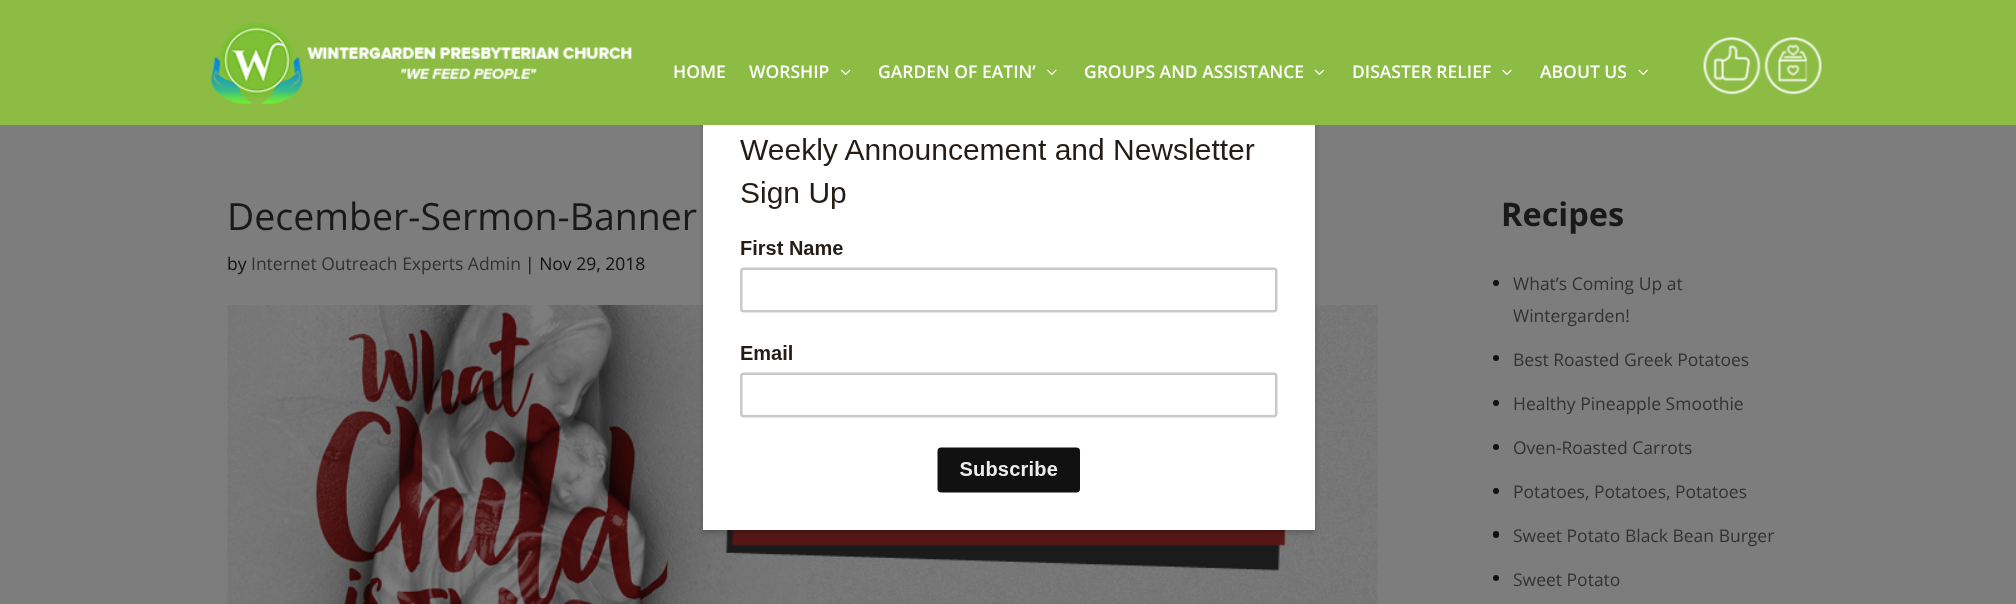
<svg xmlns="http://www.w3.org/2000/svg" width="2016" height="604">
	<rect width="100%" height="100%" fill="#7D7D7D" />
	<image x="227" y="305" width="1151" height="299" href="assets/img8.png" />
	<rect x="703" y="94" width="612" height="439" fill="#000000" fill-opacity="0.2" filter="blur(2.5px)" />
	<rect x="0" y="0" width="2016" height="125" fill="#8CBC44" />
	<image x="211" y="22" width="421" height="82" href="assets/img1.png" />
	<g font-family="Open Sans" font-size="17.5" font-weight="600" fill="#FFFFFF">
		<text x="673" y="78">HOME</text>
		<text x="749" y="78">WORSHIP</text>
	</g>
	<image x="841" y="69" width="10" height="6" href="assets/img2.png" />
	<text x="878" y="78" font-family="Open Sans" font-size="17.5" font-weight="600" fill="#FFFFFF">GARDEN OF EATIN’</text>
	<image x="1047" y="69" width="10" height="6" href="assets/img3.png" />
	<text x="1084" y="78" font-family="Open Sans" font-size="17.5" font-weight="600" fill="#FFFFFF">GROUPS AND ASSISTANCE</text>
	<image x="1314" y="69" width="10" height="6" href="assets/img4.png" />
	<text x="1352" y="78" font-family="Open Sans" font-size="17.5" font-weight="600" fill="#FFFFFF">DISASTER RELIEF</text>
	<image x="1502" y="69" width="10" height="6" href="assets/img3.png" />
	<text x="1540" y="78" font-family="Open Sans" font-size="17.5" font-weight="600" fill="#FFFFFF">ABOUT US</text>
	<image x="1638" y="69" width="10" height="6" href="assets/img5.png" />
	<image x="1703" y="37" width="58" height="58" href="assets/img6.png" />
	<image x="1764" y="37" width="58" height="58" href="assets/img7.png" />
	<text x="227" y="230" font-family="Open Sans" font-size="37.5" fill="#191919">December-Sermon-Banner</text>
	<text x="227" y="270" font-family="Open Sans" font-size="17.5" fill="#111111">by</text>
	<text x="251" y="270" font-family="Open Sans" font-size="17.5" fill="#323232">Internet Outreach Experts Admin</text>
	<text x="525" y="270" font-family="Open Sans" font-size="17.5" fill="#111111">| Nov 29, 2018</text>
	<text x="1501" y="226" font-family="Open Sans" font-size="32.5" font-weight="700" fill="#191919">Recipes</text>
	<circle cx="1496" cy="283" r="3" fill="#111111" />
	<g font-family="Open Sans" font-size="17.5" fill="#323232">
		<text x="1513" y="290">What’s Coming Up at</text>
		<text x="1513" y="322">Wintergarden!</text>
	</g>
	<circle cx="1496" cy="358" r="3" fill="#111111" />
	<text x="1513" y="366" font-family="Open Sans" font-size="17.5" fill="#323232">Best Roasted Greek Potatoes</text>
	<circle cx="1496" cy="403" r="3" fill="#111111" />
	<text x="1513" y="410" font-family="Open Sans" font-size="17.5" fill="#323232">Healthy Pineapple Smoothie</text>
	<circle cx="1496" cy="447" r="3" fill="#111111" />
	<text x="1513" y="454" font-family="Open Sans" font-size="17.5" fill="#323232">Oven-Roasted Carrots</text>
	<circle cx="1496" cy="491" r="3" fill="#111111" />
	<text x="1513" y="498" font-family="Open Sans" font-size="17.5" fill="#323232">Potatoes, Potatoes, Potatoes</text>
	<rect x="1493" y="531" width="6" height="7" rx="3" fill="#111111" />
	<text x="1513" y="542" font-family="Open Sans" font-size="17.5" fill="#323232">Sweet Potato Black Bean Burger</text>
	<circle cx="1496" cy="578" r="3" fill="#111111" />
	<text x="1513" y="586" font-family="Open Sans" font-size="17.5" fill="#323232">Sweet Potato</text>
	<image x="703" y="125" width="612" height="405" href="assets/img9.png" />
</svg>
